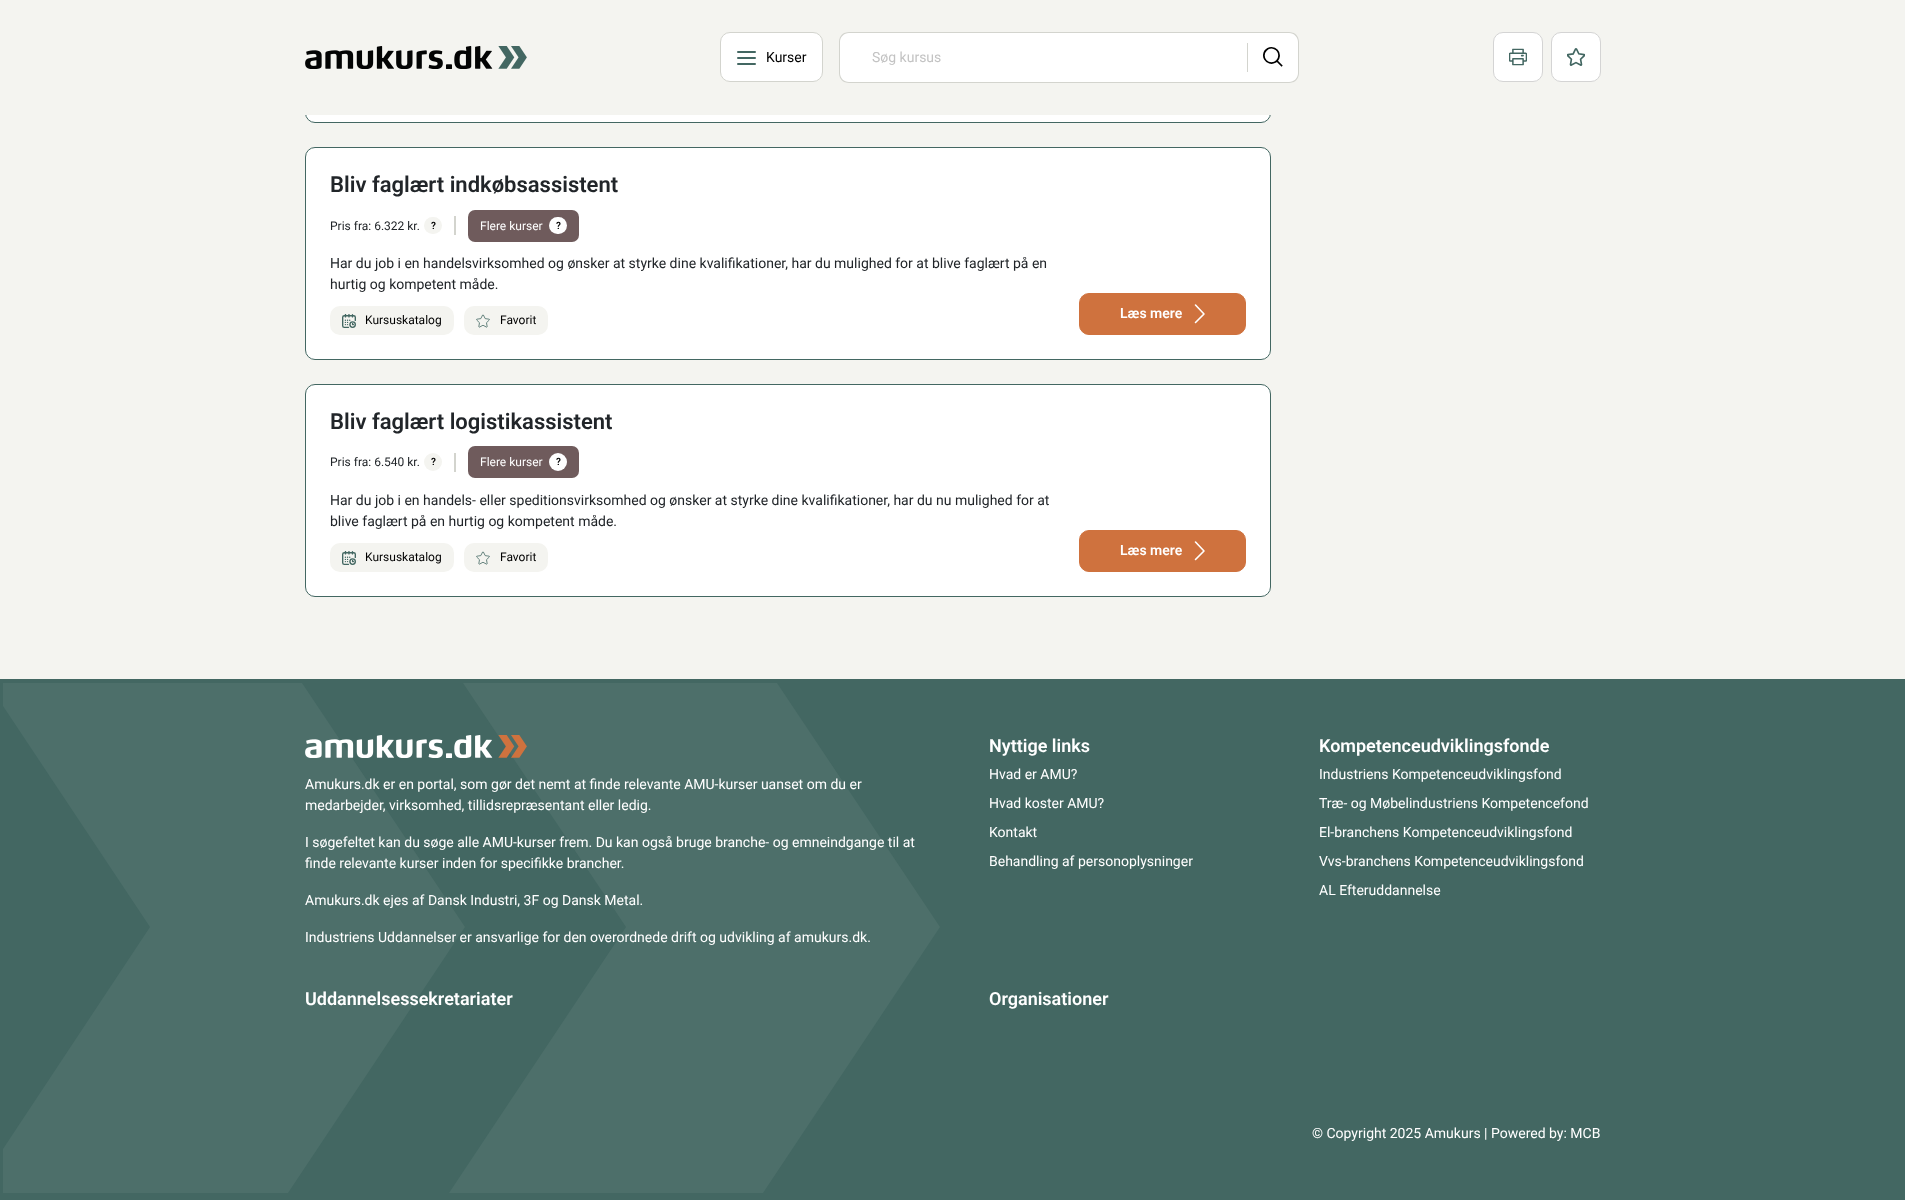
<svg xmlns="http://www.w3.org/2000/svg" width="1905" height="1200">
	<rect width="100%" height="100%" fill="#F4F4F0" />
	<rect x="305.5" y="-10.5" width="965" height="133" rx="9.5" fill="#FFFFFF" stroke="#436762" />
	<rect x="305" y="0" width="966" height="115" fill="#F4F4F0" />
	<image x="305" y="46" width="222" height="23" href="assets/img1.png" />
	<rect x="720.5" y="32.5" width="102" height="49" rx="9.5" fill="#FFFFFF" stroke="#D3D4CE" />
	<rect x="737" y="51" width="19" height="2" rx="1" fill="#436762" />
	<rect x="737" y="57" width="19" height="2" rx="1" fill="#436762" />
	<rect x="737" y="63" width="19" height="2" rx="1" fill="#436762" />
	<text x="766" y="62" font-family="Roboto" font-size="14" fill="#000000">Kurser</text>
	<path d="M849 32H1248V83H849C843.5 83 839 78.5 839 73V42C839 36.5 843.5 32 849 32Z" fill="#FFFFFF" />
	<path d="M849 32H1248V83H849C843 83 839 79 839 73V42C839 36 843 32 849 32ZM849 33H1248V82H849C844 82 840 78 840 73V42C840 37 844 33 849 33Z" fill="#D3D4CE" fill-rule="evenodd" />
	<text x="872" y="62" font-family="Roboto" font-size="14" fill="#C3C3C3">Søg kursus</text>
	<path d="M1247 32H1289C1294.5 32 1299 36.5 1299 42V73C1299 78.5 1294.5 83 1289 83H1247Z" fill="#FFFFFF" />
	<path d="M1247 32H1289C1295 32 1299 36 1299 42V73C1299 79 1295 83 1289 83H1247ZM1247 33H1289C1294 33 1298 37 1298 42V73C1298 78 1294 82 1289 82H1247Z" fill="#D3D4CE" fill-rule="evenodd" />
	<rect x="1247" y="43" width="1" height="29" fill="#D3D4CE" />
	<image x="1263" y="47" width="20" height="20" href="assets/img2.png" />
	<rect x="1493.5" y="32.5" width="49" height="49" rx="9.5" fill="#FFFFFF" stroke="#D4D4D4" />
	<image x="1509" y="48" width="18" height="18" href="assets/img3.png" />
	<rect x="1551.5" y="32.5" width="49" height="49" rx="9.5" fill="#FFFFFF" stroke="#D4D4D4" />
	<image x="1567" y="48" width="18" height="18" href="assets/img4.png" />
	<rect x="305.5" y="147.5" width="965" height="212" rx="9.5" fill="#FFFFFF" stroke="#436762" />
	<text x="330" y="192" font-family="Roboto" font-size="22" font-weight="600" fill="#212529">Bliv faglært indkøbsassistent</text>
	<text x="330" y="230" font-family="Roboto" font-size="12" fill="#212529">Pris fra: 6.322 kr.</text>
	<rect x="424" y="217" width="18" height="17" rx="8.5" fill="#F4F4F0" />
	<text x="431" y="229" font-family="Roboto" font-size="10" font-weight="600" fill="#000000">?</text>
	<rect x="454" y="216" width="2" height="19" fill="#D3D4CE" />
	<rect x="468" y="210" width="111" height="32" rx="7" fill="#6F5B5C" />
	<text x="480" y="230" font-family="Roboto" font-size="12" fill="#FFFFFF">Flere kurser</text>
	<rect x="549" y="217" width="18" height="17" rx="8.5" fill="#FFFFFF" />
	<text x="556" y="229" font-family="Roboto" font-size="10" font-weight="600" fill="#000000">?</text>
	<g font-family="Roboto" font-size="14" fill="#212529">
		<text x="330" y="268">Har du job i en handelsvirksomhed og ønsker at styrke dine kvalifikationer, har du mulighed for at blive faglært på en</text>
		<text x="330" y="289">hurtig og kompetent måde.</text>
	</g>
	<rect x="330" y="306" width="124" height="29" rx="10" fill="#F4F4F0" />
	<image x="342" y="314" width="14" height="14" href="assets/img5.png" />
	<text x="365" y="324" font-family="Roboto" font-size="12" fill="#000000">Kursuskatalog</text>
	<rect x="464" y="306" width="84" height="29" rx="10" fill="#F4F4F0" />
	<image x="476" y="314" width="14" height="14" href="assets/img6.png" />
	<text x="500" y="324" font-family="Roboto" font-size="12" fill="#000000">Favorit</text>
	<rect x="1079.5" y="293.5" width="166" height="41" rx="9.5" fill="#CF723E" stroke="#CF723E" />
	<text x="1120" y="318" font-family="Roboto" font-size="14" font-weight="600" fill="#FFFFFF">Læs mere</text>
	<path d="M1195.5 322.5L1204 314L1195.5 305" fill="none" stroke="#FFFFFF" stroke-width="1.6" stroke-linecap="round" stroke-linejoin="round" />
	<rect x="305.5" y="384.5" width="965" height="212" rx="9.5" fill="#FFFFFF" stroke="#436762" />
	<text x="330" y="429" font-family="Roboto" font-size="22" font-weight="600" fill="#212529">Bliv faglært logistikassistent</text>
	<text x="330" y="466" font-family="Roboto" font-size="12" fill="#212529">Pris fra: 6.540 kr.</text>
	<circle cx="433" cy="462" r="9" fill="#F4F4F0" />
	<text x="431" y="465" font-family="Roboto" font-size="10" font-weight="600" fill="#000000">?</text>
	<rect x="454" y="453" width="2" height="19" fill="#D3D4CE" />
	<rect x="468" y="446" width="111" height="32" rx="7" fill="#6F5B5C" />
	<text x="480" y="466" font-family="Roboto" font-size="12" fill="#FFFFFF">Flere kurser</text>
	<circle cx="558" cy="462" r="9" fill="#FFFFFF" />
	<text x="556" y="465" font-family="Roboto" font-size="10" font-weight="600" fill="#000000">?</text>
	<g font-family="Roboto" font-size="14" fill="#212529">
		<text x="330" y="505">Har du job i en handels- eller speditionsvirksomhed og ønsker at styrke dine kvalifikationer, har du nu mulighed for at</text>
		<text x="330" y="526">blive faglært på en hurtig og kompetent måde.</text>
	</g>
	<rect x="330" y="543" width="124" height="29" rx="10" fill="#F4F4F0" />
	<image x="342" y="551" width="14" height="14" href="assets/img5.png" />
	<text x="365" y="561" font-family="Roboto" font-size="12" fill="#000000">Kursuskatalog</text>
	<rect x="464" y="543" width="84" height="29" rx="10" fill="#F4F4F0" />
	<image x="476" y="551" width="14" height="14" href="assets/img6.png" />
	<text x="500" y="561" font-family="Roboto" font-size="12" fill="#000000">Favorit</text>
	<rect x="1079.5" y="530.5" width="166" height="41" rx="9.5" fill="#CF723E" stroke="#CF723E" />
	<text x="1120" y="555" font-family="Roboto" font-size="14" font-weight="600" fill="#FFFFFF">Læs mere</text>
	<path d="M1195.5 559.5L1204 551L1195.5 542" fill="none" stroke="#FFFFFF" stroke-width="1.6" stroke-linecap="round" stroke-linejoin="round" />
	<rect x="0" y="679" width="1905" height="521" fill="#436762" />
	<path d="M763 1193H449L626 927L463 683H777L940 927ZM288 1193H3V1149L150 927L3 706V683H302L465 927Z" fill="#4D6F6A" />
	<image x="305" y="735" width="222" height="23" href="assets/img7.png" />
	<g font-family="Roboto" font-size="14" fill="#FFFFFF">
		<text x="305" y="789">Amukurs.dk er en portal, som gør det nemt at finde relevante AMU-kurser uanset om du er</text>
		<text x="305" y="810">medarbejder, virksomhed, tillidsrepræsentant eller ledig.</text>
		<text x="305" y="847">I søgefeltet kan du søge alle AMU-kurser frem. Du kan også bruge branche- og emneindgange til at</text>
		<text x="305" y="868">finde relevante kurser inden for specifikke brancher.</text>
		<text x="305" y="905">Amukurs.dk ejes af Dansk Industri, 3F og Dansk Metal.</text>
		<text x="305" y="942">Industriens Uddannelser er ansvarlige for den overordnede drift og udvikling af amukurs.dk.</text>
	</g>
	<text x="989" y="752" font-family="Roboto" font-size="18" font-weight="600" fill="#FFFFFF">Nyttige links</text>
	<g font-family="Roboto" font-size="14" fill="#FFFFFF">
		<text x="989" y="779">Hvad er AMU?</text>
		<text x="989" y="808">Hvad koster AMU?</text>
		<text x="989" y="837">Kontakt</text>
		<text x="989" y="866">Behandling af personoplysninger</text>
	</g>
	<text x="1319" y="752" font-family="Roboto" font-size="18" font-weight="600" fill="#FFFFFF">Kompetenceudviklingsfonde</text>
	<g font-family="Roboto" font-size="14" fill="#FFFFFF">
		<text x="1319" y="779">Industriens Kompetenceudviklingsfond</text>
		<text x="1319" y="808">Træ- og Møbelindustriens Kompetencefond</text>
		<text x="1319" y="837">El-branchens Kompetenceudviklingsfond</text>
		<text x="1319" y="866">Vvs-branchens Kompetenceudviklingsfond</text>
		<text x="1319" y="895">AL Efteruddannelse</text>
	</g>
	<g font-family="Roboto" font-size="18" font-weight="600" fill="#FFFFFF">
		<text x="305" y="1005">Uddannelsessekretariater</text>
		<text x="989" y="1005">Organisationer</text>
	</g>
	<text x="1312" y="1138" font-family="Roboto" font-size="14" fill="#FFFFFF">© Copyright 2025 Amukurs | Powered by: MCB</text>
</svg>
